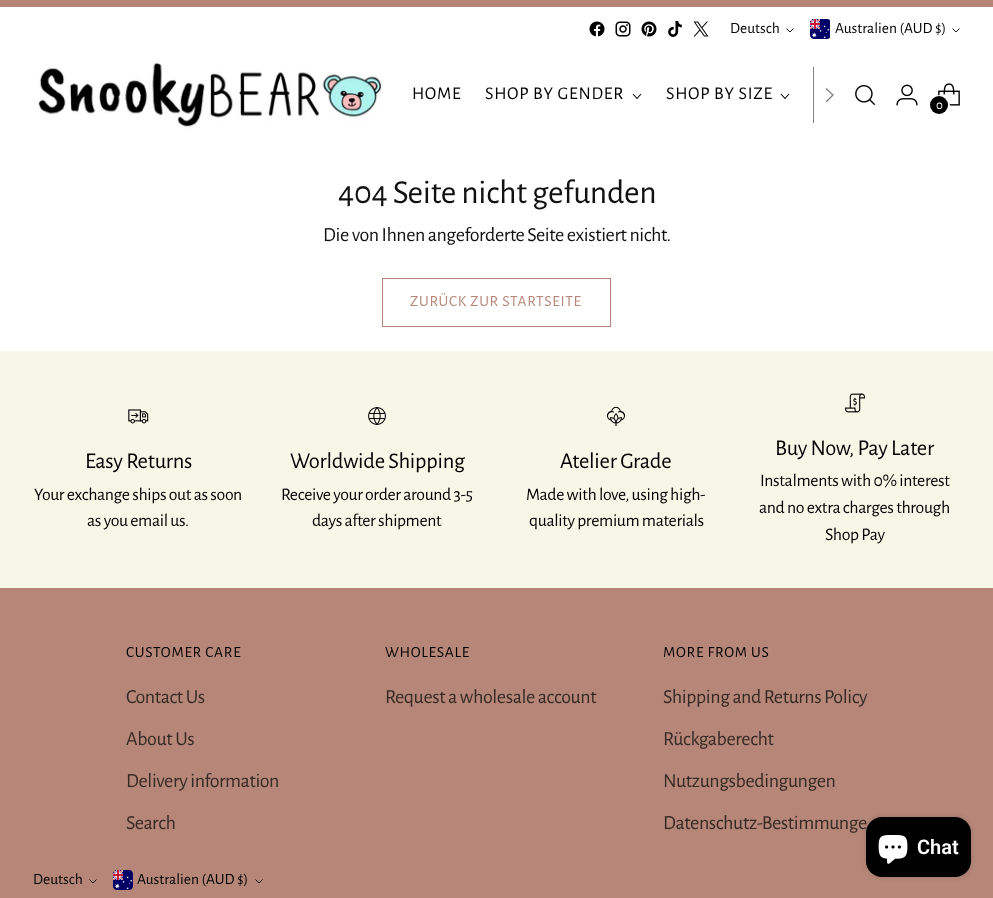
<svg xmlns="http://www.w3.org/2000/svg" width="993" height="898">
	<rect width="100%" height="100%" fill="#FFFFFF" />
	<rect x="0" y="0" width="993" height="7" fill="#B68778" />
	<image x="589" y="21" width="16" height="16" href="assets/img1.png" />
	<image x="615" y="21" width="16" height="16" href="assets/img2.png" />
	<image x="641" y="21" width="16" height="16" href="assets/img3.png" />
	<image x="668" y="21" width="14" height="16" href="assets/img4.png" />
	<image x="693" y="21" width="16" height="16" href="assets/img5.png" />
	<text x="730" y="33" font-family="Alegreya Sans" font-size="15.5" fill="#000000">Deutsch</text>
	<path d="M786.5 28.5L790 32L793.5 28.5" fill="none" stroke="#000000" stroke-width="0.9" />
	<image x="810" y="19" width="20" height="20" href="assets/img6.png" />
	<text x="835" y="33" font-family="Alegreya Sans" font-size="15.5" fill="#000000">Australien (AUD $)</text>
	<path d="M952.5 28.5L956 32L959.5 28.5" fill="none" stroke="#000000" stroke-width="0.9" />
	<image x="38" y="62" width="345" height="67" href="assets/img7.png" />
	<g font-family="Alegreya Sans" font-size="18" letter-spacing="0.75" fill="#000000">
		<text x="412" y="99">HOME</text>
		<text x="485" y="99">SHOP BY GENDER</text>
	</g>
	<path d="M633 94L637 98.5L641 94" fill="none" stroke="#000000" stroke-width="1.1" />
	<text x="666" y="99" font-family="Alegreya Sans" font-size="18" letter-spacing="0.75" fill="#000000">SHOP BY SIZE</text>
	<path d="M781 94L785 98.5L789 94" fill="none" stroke="#000000" stroke-width="1.1" />
	<rect x="813" y="67" width="1" height="56" fill="#808080" />
	<path d="M826 102L833 95L826 88.5" fill="none" stroke="#808080" stroke-width="1.3" />
	<image x="855" y="85" width="21" height="21" href="assets/img8.png" />
	<image x="896" y="84" width="22" height="22" href="assets/img9.png" />
	<image x="938" y="83" width="22" height="23" href="assets/img10.png" />
	<circle cx="939.5" cy="105.5" r="9.5" fill="none" stroke="#FFFFFF" stroke-width="2" />
	<circle cx="939" cy="105" r="9" fill="#000000" />
	<text x="936" y="109" font-family="Alegreya Sans" font-size="13" letter-spacing="-0.4" fill="#FFFFFF">0</text>
	<text x="338" y="203" font-family="Alegreya Sans" font-size="33.75" letter-spacing="-0.3" fill="#111111">404 Seite nicht gefunden</text>
	<text x="323" y="241" font-family="Alegreya Sans" font-size="20" letter-spacing="-0.4" fill="#111111">Die von Ihnen angeforderte Seite existiert nicht.</text>
	<rect x="382.5" y="278.5" width="228" height="48" fill="none" stroke="#B68778" />
	<text x="410" y="306" font-family="Alegreya Sans" font-size="15.5" letter-spacing="0.75" fill="#B68778">ZURÜCK ZUR STARTSEITE</text>
	<rect x="0" y="351" width="993" height="237" fill="#F7F7E8" />
	<image x="128" y="409" width="21" height="15" href="assets/img11.png" />
	<text x="85" y="468" font-family="Alegreya Sans" font-size="22.5" letter-spacing="-0.25" fill="#000000">Easy Returns</text>
	<g font-family="Alegreya Sans" font-size="17.75" letter-spacing="-0.35" fill="#000000">
		<text x="34" y="500">Your exchange ships out as soon</text>
		<text x="87" y="526">as you email us.</text>
	</g>
	<image x="368" y="407" width="18" height="18" href="assets/img12.png" />
	<text x="290" y="468" font-family="Alegreya Sans" font-size="22.5" letter-spacing="-0.25" fill="#000000">Worldwide Shipping</text>
	<g font-family="Alegreya Sans" font-size="17.75" letter-spacing="-0.35" fill="#000000">
		<text x="281" y="500">Receive your order around 3-5</text>
		<text x="312" y="526">days after shipment</text>
	</g>
	<image x="607" y="406" width="18" height="21" href="assets/img13.png" />
	<text x="560" y="468" font-family="Alegreya Sans" font-size="22.5" letter-spacing="-0.25" fill="#000000">Atelier Grade</text>
	<g font-family="Alegreya Sans" font-size="17.75" letter-spacing="-0.35" fill="#000000">
		<text x="526" y="500">Made with love, using high-</text>
		<text x="529" y="526">quality premium materials</text>
	</g>
	<image x="845" y="393" width="20" height="20" href="assets/img14.png" />
	<text x="775" y="455" font-family="Alegreya Sans" font-size="22.5" letter-spacing="-0.25" fill="#000000">Buy Now, Pay Later</text>
	<g font-family="Alegreya Sans" font-size="17.75" letter-spacing="-0.35" fill="#000000">
		<text x="760" y="486">Instalments with 0% interest</text>
		<text x="759" y="513">and no extra charges through</text>
		<text x="825" y="540">Shop Pay</text>
	</g>
	<rect x="0" y="588" width="993" height="310" fill="#B68778" />
	<text x="126" y="657" font-family="Alegreya Sans" font-size="15.5" letter-spacing="0.75" fill="#000000">CUSTOMER CARE</text>
	<g font-family="Alegreya Sans" font-size="20" letter-spacing="-0.4" fill="#372924">
		<text x="126" y="703">Contact Us</text>
		<text x="126" y="745">About Us</text>
		<text x="126" y="787">Delivery information</text>
		<text x="126" y="829">Search</text>
	</g>
	<text x="385" y="657" font-family="Alegreya Sans" font-size="15.5" letter-spacing="0.75" fill="#000000">WHOLESALE</text>
	<text x="385" y="703" font-family="Alegreya Sans" font-size="20" letter-spacing="-0.4" fill="#372924">Request a wholesale account</text>
	<text x="663" y="657" font-family="Alegreya Sans" font-size="15.5" letter-spacing="0.75" fill="#000000">MORE FROM US</text>
	<g font-family="Alegreya Sans" font-size="20" letter-spacing="-0.4" fill="#372924">
		<text x="663" y="703">Shipping and Returns Policy</text>
		<text x="663" y="745">Rückgaberecht</text>
		<text x="663" y="787">Nutzungsbedingungen</text>
		<text x="663" y="829">Datenschutz-Bestimmunge</text>
	</g>
	<text x="33" y="884" font-family="Alegreya Sans" font-size="15.5" fill="#000000">Deutsch</text>
	<path d="M89.5 879.5L93 883L96.5 879.5" fill="none" stroke="#000000" stroke-width="0.9" />
	<image x="113" y="870" width="20" height="20" href="assets/img15.png" />
	<text x="137" y="884" font-family="Alegreya Sans" font-size="15.5" fill="#000000">Australien (AUD $)</text>
	<path d="M255.5 879.5L259 883L262.5 879.5" fill="none" stroke="#000000" stroke-width="0.9" />
	<rect x="866" y="817" width="105" height="60" rx="16" fill="#000000" fill-opacity="0.15" filter="blur(2.5px)" />
	<rect x="866" y="817" width="105" height="60" rx="16" fill="#000000" />
	<image x="878" y="835" width="30" height="29" href="assets/img16.png" />
	<text x="917" y="854" font-family="Roboto" font-size="20" font-weight="600" fill="#FFFFFF">Chat</text>
</svg>
